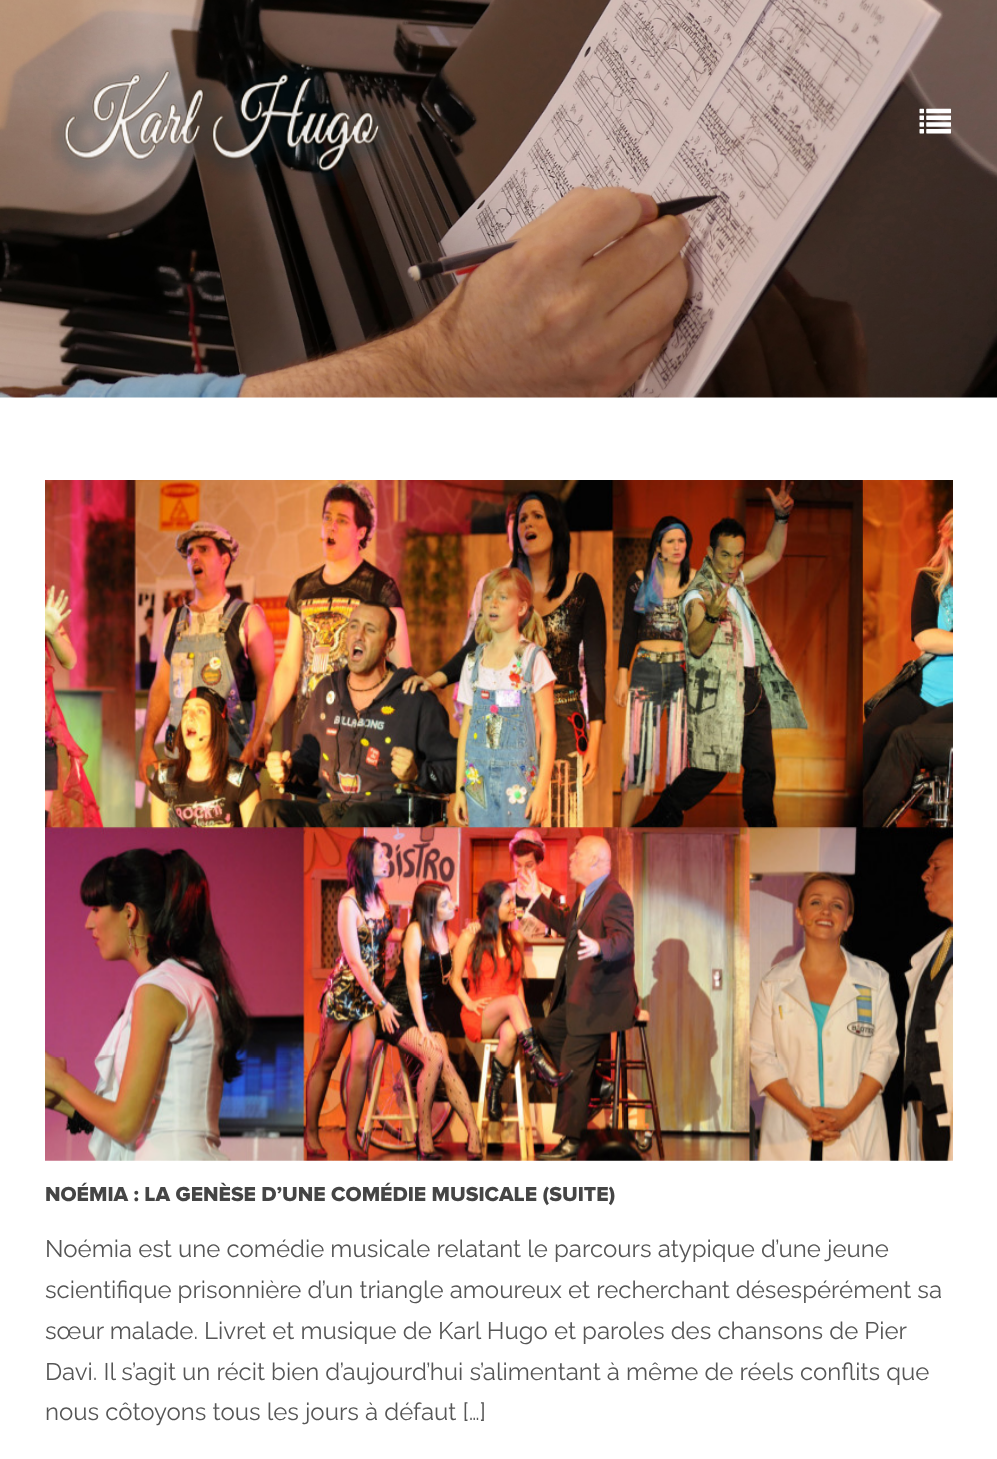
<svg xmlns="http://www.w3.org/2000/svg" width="997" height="1459">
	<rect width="100%" height="100%" fill="#FFFFFF" />
	<image x="0" y="0" width="997" height="398" href="assets/img1.png" />
	<image x="51" y="58" width="344" height="128" href="assets/img2.png" />
	<image x="919" y="108" width="32" height="26" href="assets/img3.png" />
	<image x="45" y="480" width="908" height="681" href="assets/img4.png" />
	<text x="45" y="1201" font-family="Proxima Nova" font-size="21" font-weight="800" fill="#454545">NOÉMIA : LA GENÈSE D’UNE COMÉDIE MUSICALE (SUITE)</text>
	<g font-family="Raleway" font-size="24" fill="#565656">
		<text x="45" y="1257">Noémia est une comédie musicale relatant le parcours atypique d’une jeune</text>
		<text x="45" y="1298">scientifique prisonnière d’un triangle amoureux et recherchant désespérément sa</text>
		<text x="45" y="1339">sœur malade. Livret et musique de Karl Hugo et paroles des chansons de Pier</text>
		<text x="45" y="1380">Davi. Il s’agit un récit bien d’aujourd’hui s’alimentant à même de réels conflits que</text>
		<text x="45" y="1420">nous côtoyons tous les jours à défaut […]</text>
	</g>
</svg>
